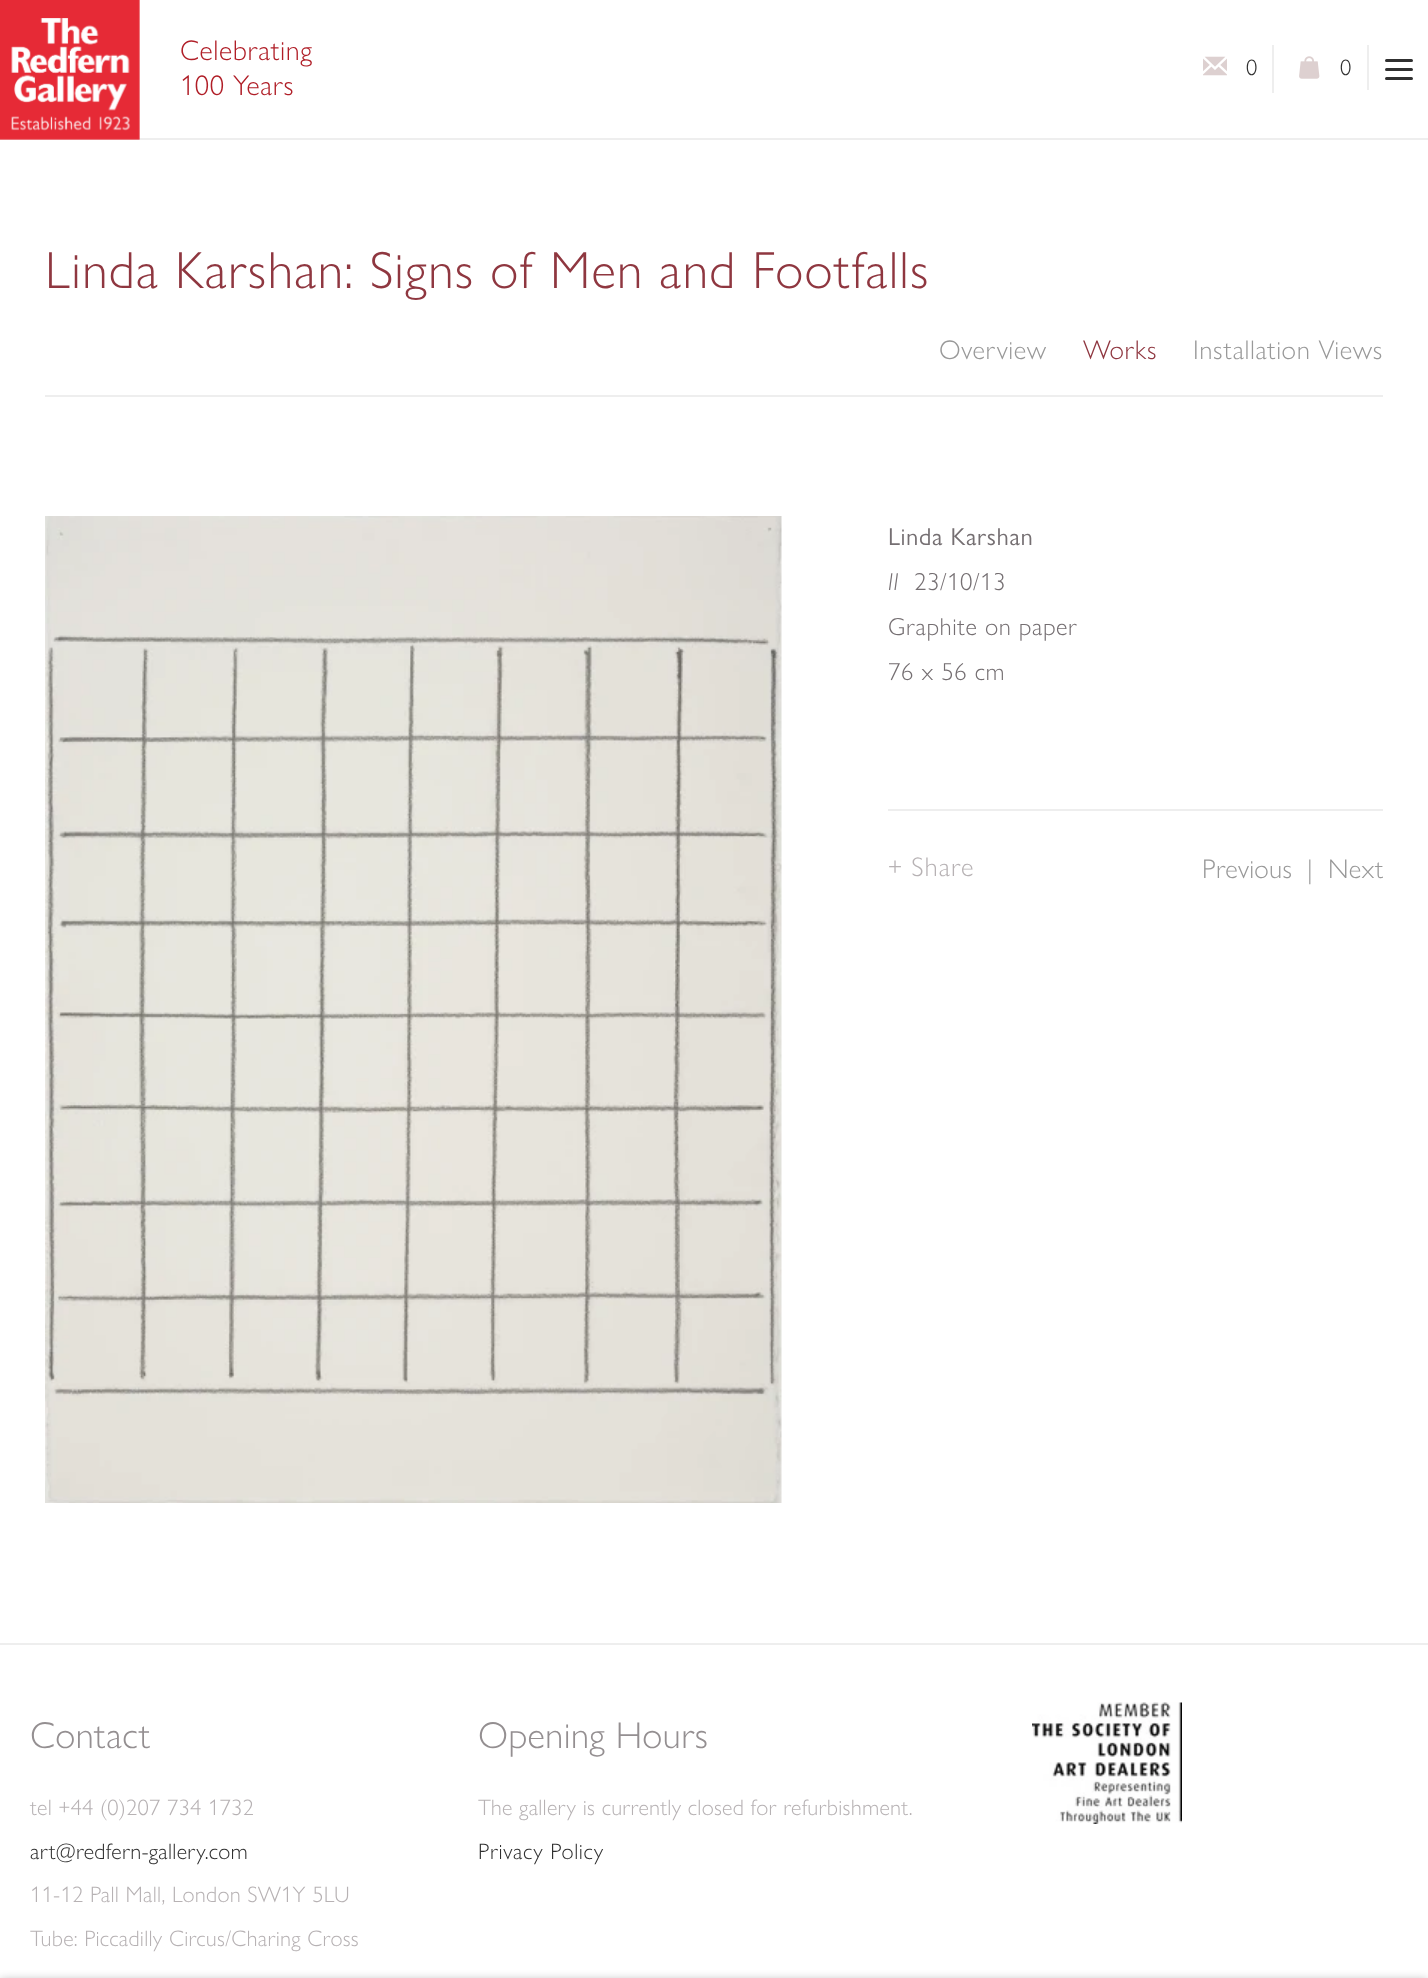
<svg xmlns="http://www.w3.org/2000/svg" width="1428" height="1978">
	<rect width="100%" height="100%" fill="#FFFFFF" />
	<rect x="0" y="138" width="1428" height="2" fill="#EEEEEE" />
	<image x="0" y="0" width="140" height="140" href="assets/img1.png" />
	<g font-family="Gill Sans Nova" font-size="28.5" letter-spacing="0.6" fill="#B01E27">
		<text x="180" y="60">Celebrating</text>
		<text x="180" y="95">100 Years</text>
	</g>
	<rect x="1272" y="45" width="2" height="48" fill="#EEEEEE" />
	<image x="1203" y="56" width="24" height="20" href="assets/img2.png" />
	<text x="1246" y="75" font-family="Gill Sans Nova" font-size="22.5" fill="#303030">0</text>
	<rect x="1367" y="45" width="2" height="45" fill="#EEEEEE" />
	<image x="1299" y="56" width="21" height="23" href="assets/img3.png" />
	<text x="1340" y="75" font-family="Gill Sans Nova" font-size="22.5" fill="#303030">0</text>
	<rect x="1385" y="68" width="28" height="3" rx="1.5" fill="#303030" />
	<rect x="1385" y="59" width="28" height="3" rx="1.5" fill="#303030" />
	<rect x="1385" y="77" width="28" height="3" rx="1.5" fill="#303030" />
	<rect x="45" y="395" width="1338" height="2" fill="#EEEEEE" />
	<text x="45" y="288" font-family="Gill Sans Nova" font-size="52.5" letter-spacing="1.2" fill="#8F3740">Linda Karshan: Signs of Men and Footfalls</text>
	<text x="939" y="359" font-family="Gill Sans Nova" font-size="27" letter-spacing="0.6" fill="#999999">Overview</text>
	<text x="1083" y="359" font-family="Gill Sans Nova" font-size="27" letter-spacing="0.6" fill="#8F3740">Works</text>
	<text x="1193" y="359" font-family="Gill Sans Nova" font-size="27" letter-spacing="0.6" fill="#999999">Installation Views</text>
	<image x="45" y="516" width="737" height="987" href="assets/img4.png" />
	<text x="888" y="545" font-family="'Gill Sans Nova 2'" font-size="24.75" letter-spacing="0.6" fill="#756F72">Linda Karshan</text>
	<text x="888" y="590" font-family="Gill Sans Nova" font-size="24.75" font-style="italic" letter-spacing="0.6" fill="#756F72">II</text>
	<g font-family="Gill Sans Nova" font-size="24.75" letter-spacing="0.6" fill="#756F72">
		<text x="914" y="590">23/10/13</text>
		<text x="888" y="635">Graphite on paper</text>
		<text x="888" y="680">76 x 56 cm</text>
	</g>
	<rect x="888" y="809" width="495" height="2" fill="#EEEEEE" />
	<text x="888" y="876" font-family="Gill Sans Nova" font-size="27" letter-spacing="1" fill="#B7B2B4">+ Share</text>
	<g font-family="Gill Sans Nova" font-size="27" letter-spacing="0.25" fill="#999999">
		<text x="1202" y="878">Previous</text>
		<text x="1307" y="878">|</text>
		<text x="1328" y="878">Next</text>
	</g>
	<rect x="0" y="1643" width="1428" height="2" fill="#EEEEEE" />
	<text x="30" y="1748" font-family="Gill Sans Nova" font-size="37.5" letter-spacing="0.25" fill="#948F91">Contact</text>
	<text x="30" y="1815" font-family="Gill Sans Nova" font-size="22.5" letter-spacing="0.25" fill="#B7B2B4">tel +44 (0)207 734 1732</text>
	<text x="30" y="1859" font-family="Gill Sans Nova" font-size="22.5" letter-spacing="0.25" fill="#303030">art@redfern-gallery.com</text>
	<g font-family="Gill Sans Nova" font-size="22.5" letter-spacing="0.25" fill="#B7B2B4">
		<text x="30" y="1902">11-12 Pall Mall, London SW1Y 5LU</text>
		<text x="30" y="1946">Tube: Piccadilly Circus/Charing Cross</text>
	</g>
	<text x="478" y="1748" font-family="Gill Sans Nova" font-size="37.5" letter-spacing="0.25" fill="#948F91">Opening Hours</text>
	<text x="478" y="1815" font-family="Gill Sans Nova" font-size="22.5" letter-spacing="0.25" fill="#B7B2B4">The gallery is currently closed for refurbishment.</text>
	<text x="478" y="1859" font-family="Gill Sans Nova" font-size="22.5" letter-spacing="0.6" fill="#303030">Privacy Policy</text>
	<image x="1032" y="1702" width="150" height="122" href="assets/img5.png" />
	<rect x="0" y="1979" width="1428" height="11" fill="#000000" fill-opacity="0.23" filter="blur(4px)" />
</svg>
